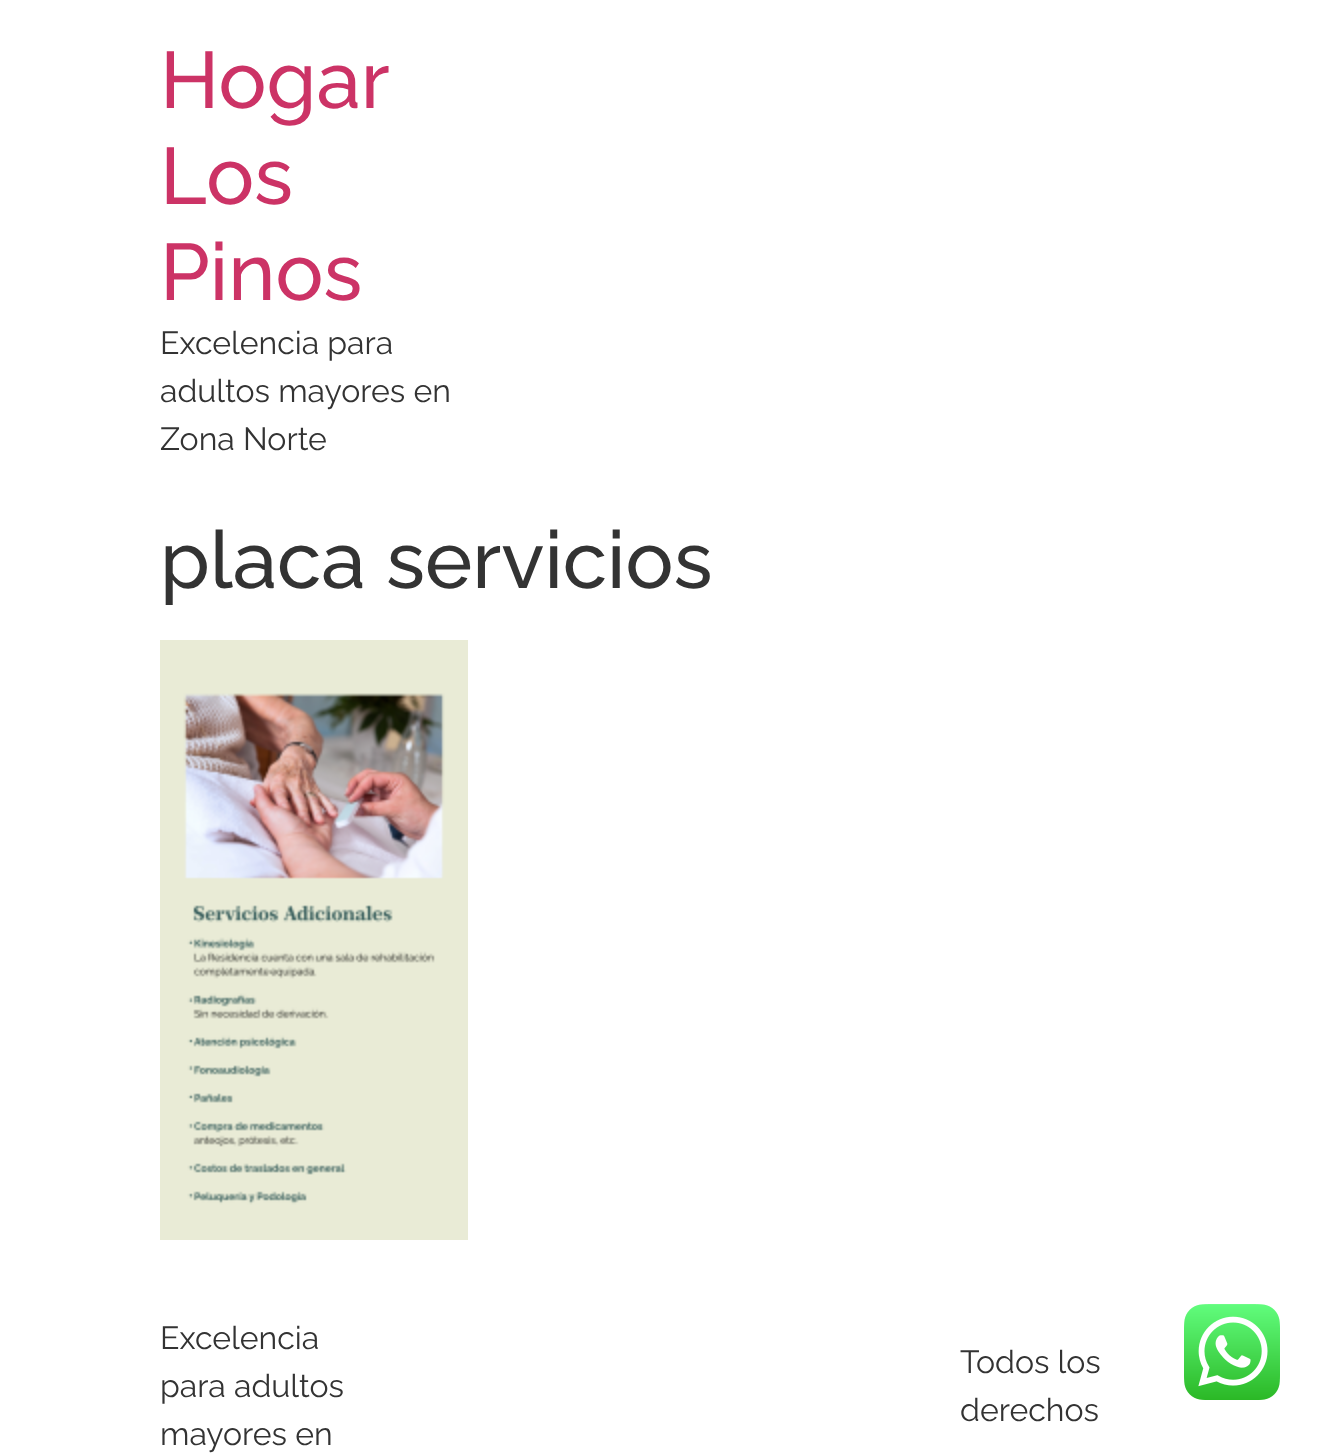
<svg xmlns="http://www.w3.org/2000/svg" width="1320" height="1453">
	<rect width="100%" height="100%" fill="#FFFFFF" />
	<g font-family="Raleway" font-size="80" font-weight="500" fill="#CC3366">
		<text x="160" y="108">Hogar</text>
		<text x="160" y="204">Los</text>
		<text x="160" y="300">Pinos</text>
	</g>
	<g font-family="Raleway" font-size="32" fill="#333333">
		<text x="160" y="354">Excelencia para</text>
		<text x="160" y="402">adultos mayores en</text>
		<text x="160" y="450">Zona Norte</text>
	</g>
	<text x="160" y="588" font-family="Raleway" font-size="80" font-weight="500" fill="#333333">placa servicios</text>
	<image x="160" y="640" width="308" height="600" href="assets/img1.png" />
	<g font-family="Raleway" font-size="32" fill="#333333">
		<text x="160" y="1349">Excelencia</text>
		<text x="160" y="1397">para adultos</text>
		<text x="160" y="1445">mayores en</text>
		<text x="960" y="1373">Todos los</text>
		<text x="960" y="1421">derechos</text>
	</g>
	<image x="1184" y="1304" width="96" height="96" href="assets/img2.png" />
</svg>
